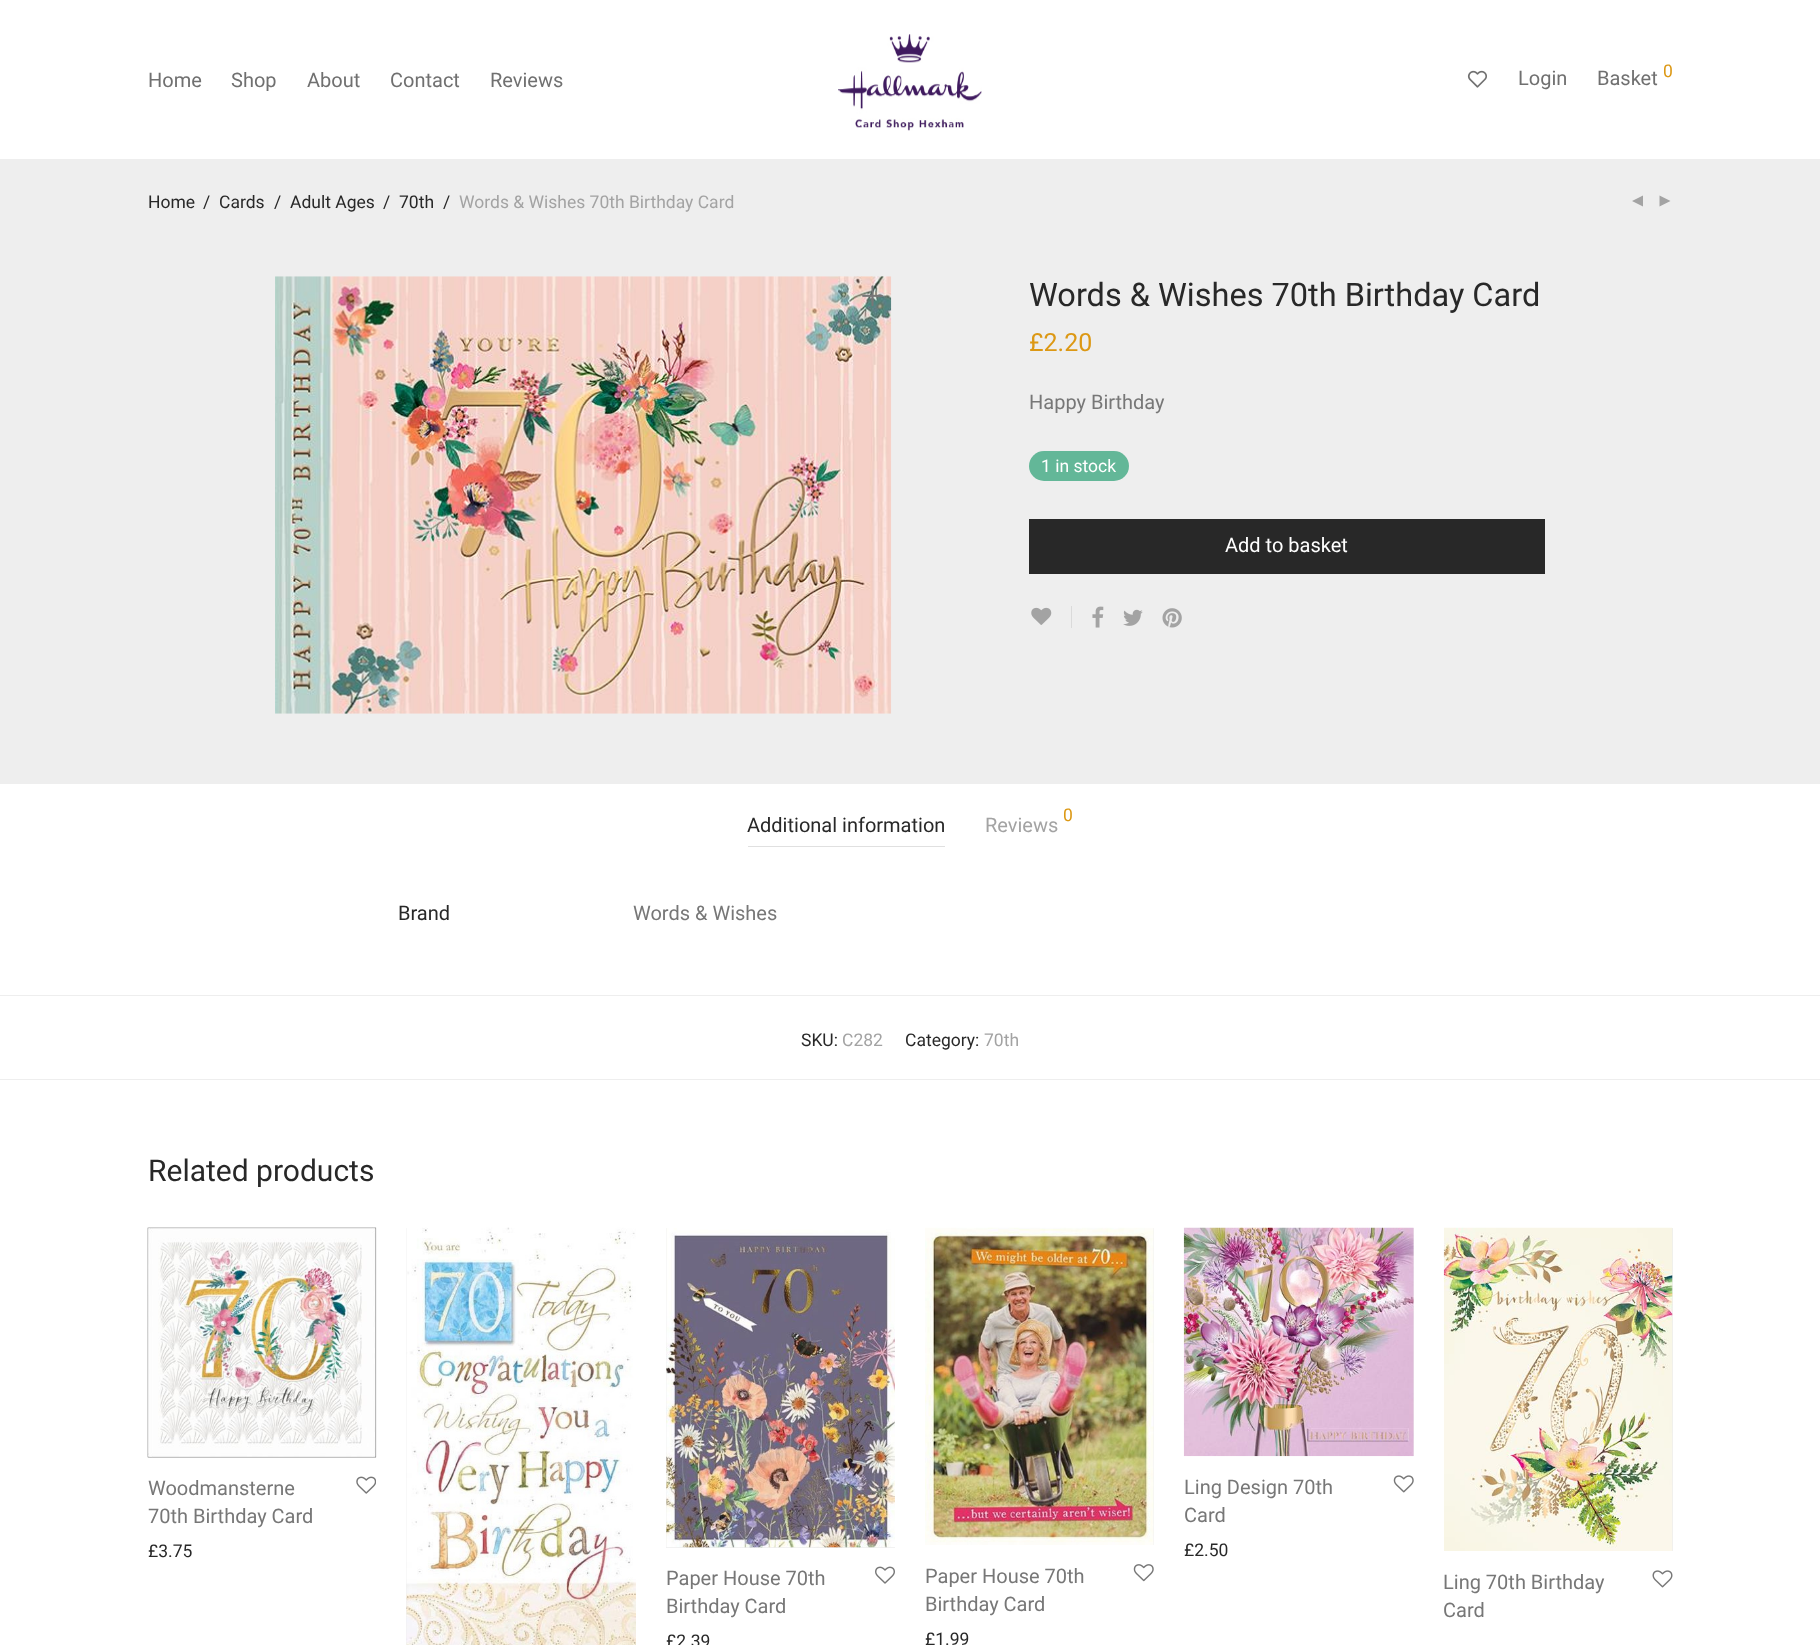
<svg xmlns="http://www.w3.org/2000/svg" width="1820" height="1645">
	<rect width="100%" height="100%" fill="#FFFFFF" />
	<g font-family="Roboto" font-size="20" fill="#707070">
		<text x="148" y="87">Home</text>
		<text x="231" y="87">Shop</text>
		<text x="307" y="87">About</text>
		<text x="390" y="87">Contact</text>
		<text x="490" y="87">Reviews</text>
	</g>
	<image x="838" y="34" width="144" height="97" href="assets/img1.png" />
	<image x="1467" y="70" width="20" height="18" href="assets/img2.png" />
	<g font-family="Roboto" font-size="20" fill="#707070">
		<text x="1518" y="85">Login</text>
		<text x="1597" y="85">Basket</text>
	</g>
	<text x="1663" y="77" font-family="Roboto" font-size="17.5" fill="#DC9814">0</text>
	<rect x="0" y="159" width="1820" height="625" fill="#EEEEEE" />
	<g font-family="Roboto" font-size="17.5" fill="#282828">
		<text x="148" y="208">Home</text>
		<text x="203" y="208">/</text>
		<text x="219" y="208">Cards</text>
		<text x="274" y="208">/</text>
		<text x="290" y="208">Adult Ages</text>
		<text x="383" y="208">/</text>
		<text x="399" y="208">70th</text>
		<text x="443" y="208">/</text>
	</g>
	<text x="459" y="208" font-family="Roboto" font-size="17.5" fill="#A3A3A3">Words &amp; Wishes 70th Birthday Card</text>
	<path d="M1643 195.5V206.5L1632 201ZM1659.5 195.5V206.5L1670.5 201Z" fill="#A3A3A3" />
	<image x="275" y="276" width="617" height="438" href="assets/img3.png" />
	<image x="862" y="285" width="21" height="22" href="assets/img4.png" />
	<text x="1029" y="306" font-family="Roboto" font-size="32.5" fill="#282828">Words &amp; Wishes 70th Birthday Card</text>
	<text x="1029" y="351" font-family="Roboto" font-size="25" fill="#DC9814">£2.20</text>
	<text x="1029" y="409" font-family="Roboto" font-size="20" fill="#777777">Happy Birthday</text>
	<rect x="1029" y="451" width="100" height="30" rx="15" fill="#63B798" />
	<text x="1041" y="472" font-family="Roboto" font-size="17.5" fill="#FFFFFF">1 in stock</text>
	<rect x="1029" y="519" width="516" height="55" fill="#282828" />
	<text x="1225" y="552" font-family="Roboto" font-size="20" fill="#FFFFFF">Add to basket</text>
	<rect x="1071" y="606" width="1" height="22" fill="#DADADA" />
	<image x="1031" y="607" width="21" height="18" href="assets/img5.png" />
	<image x="1092" y="606" width="12" height="22" href="assets/img6.png" />
	<image x="1123" y="609" width="20" height="17" href="assets/img7.png" />
	<image x="1162" y="608" width="20" height="20" href="assets/img8.png" />
	<rect x="0" y="995" width="1820" height="1" fill="#EEEEEE" />
	<rect x="748" y="846" width="197" height="1" fill="#E0E0E0" />
	<text x="747" y="832" font-family="Roboto" font-size="20" fill="#282828">Additional information</text>
	<text x="1063" y="821" font-family="Roboto" font-size="17.5" fill="#DC9814">0</text>
	<text x="985" y="832" font-family="Roboto" font-size="20" fill="#A3A3A3">Reviews</text>
	<text x="398" y="920" font-family="Roboto" font-size="20" fill="#282828">Brand</text>
	<text x="633" y="920" font-family="Roboto" font-size="20" fill="#777777">Words &amp; Wishes</text>
	<text x="801" y="1046" font-family="Roboto" font-size="17.5" fill="#282828">SKU:</text>
	<text x="842" y="1046" font-family="Roboto" font-size="17.5" fill="#A3A3A3">C282</text>
	<text x="905" y="1046" font-family="Roboto" font-size="17.5" fill="#282828">Category:</text>
	<text x="984" y="1046" font-family="Roboto" font-size="17.5" fill="#A3A3A3">70th</text>
	<rect x="0" y="1079" width="1820" height="1" fill="#EEEEEE" />
	<text x="148" y="1181" font-family="Roboto" font-size="30" fill="#282828">Related products</text>
	<rect x="148" y="1457" width="228" height="1" fill="#EEEEEE" />
	<image x="147" y="1227" width="230" height="231" href="assets/img9.png" />
	<g font-family="Roboto" font-size="20" fill="#777777">
		<text x="148" y="1495">Woodmansterne</text>
		<text x="148" y="1523">70th Birthday Card</text>
	</g>
	<text x="148" y="1557" font-family="Roboto" font-size="17.5" fill="#282828">£3.75</text>
	<image x="356" y="1476" width="20" height="18" href="assets/img10.png" />
	<rect x="406" y="1228" width="1" height="417" fill="#EEEEEE" />
	<image x="406" y="1227" width="230" height="418" href="assets/img11.png" />
	<rect x="1413" y="1228" width="1" height="228" fill="#EEEEEE" />
	<image x="1183" y="1227" width="231" height="230" href="assets/img12.png" />
	<g font-family="Roboto" font-size="20" fill="#777777">
		<text x="1184" y="1494">Ling Design 70th</text>
		<text x="1184" y="1522">Card</text>
	</g>
	<text x="1184" y="1556" font-family="Roboto" font-size="17.5" fill="#282828">£2.50</text>
	<image x="1393" y="1475" width="21" height="18" href="assets/img13.png" />
	<rect x="666" y="1228" width="229" height="320" fill="#EEEEEE" />
	<image x="666" y="1228" width="229" height="320" href="assets/img14.png" />
	<g font-family="Roboto" font-size="20" fill="#777777">
		<text x="666" y="1585">Paper House 70th</text>
		<text x="666" y="1613">Birthday Card</text>
	</g>
	<text x="666" y="1647" font-family="Roboto" font-size="17.5" fill="#282828">£2.39</text>
	<image x="875" y="1566" width="20" height="18" href="assets/img15.png" />
	<rect x="1153" y="1228" width="1" height="317" fill="#EEEEEE" />
	<image x="925" y="1227" width="229" height="318" href="assets/img16.png" />
	<g font-family="Roboto" font-size="20" fill="#777777">
		<text x="925" y="1583">Paper House 70th</text>
		<text x="925" y="1611">Birthday Card</text>
	</g>
	<text x="925" y="1645" font-family="Roboto" font-size="17.5" fill="#282828">£1.99</text>
	<image x="1133" y="1564" width="21" height="18" href="assets/img17.png" />
	<rect x="1672" y="1228" width="1" height="323" fill="#EEEEEE" />
	<image x="1443" y="1227" width="230" height="324" href="assets/img18.png" />
	<g font-family="Roboto" font-size="20" fill="#777777">
		<text x="1443" y="1589">Ling 70th Birthday</text>
		<text x="1443" y="1617">Card</text>
	</g>
	<image x="1652" y="1570" width="21" height="18" href="assets/img19.png" />
</svg>
